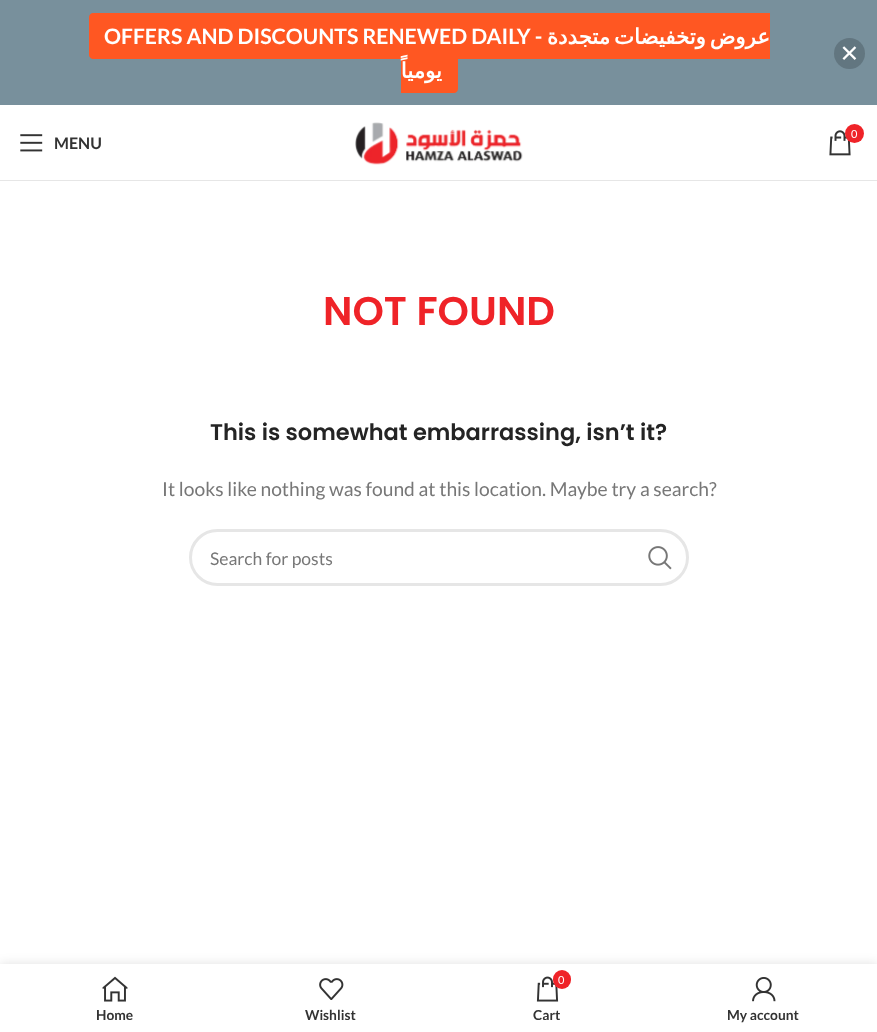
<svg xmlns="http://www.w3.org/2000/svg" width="877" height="1032">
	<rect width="100%" height="100%" fill="#FFFFFF" />
	<rect x="0" y="0" width="877" height="105" fill="#78909C" />
	<path d="M93 13H546V59H93C91 59 89 57 89 55V17C89 15 91 13 93 13Z" fill="#FF5722" />
	<text x="104" y="44" font-family="Lato" font-size="21.25" font-weight="700" fill="#FFFFFF">OFFERS AND DISCOUNTS RENEWED DAILY -</text>
	<rect x="546" y="13" width="224" height="46" fill="#FF5722" />
	<text x="770" y="44" word-spacing="-3" font-family="DejaVu Sans" font-size="21.25" font-weight="700" direction="rtl" fill="#FFFFFF">عروض وتخفيضات متجددة</text>
	<path d="M401 46H454C456 46 458 48 458 50V89C458 91 456 93 454 93H401Z" fill="#FF5722" />
	<text x="442" y="78" font-family="DejaVu Sans" font-size="21.25" font-weight="700" direction="rtl" fill="#FFFFFF">يومياً</text>
	<circle cx="849.5" cy="53.5" r="15.5" fill="#627680" />
	<image x="842" y="46" width="15" height="14" href="assets/img1.png" />
	<rect x="0" y="180" width="877" height="1" fill="#E6E6E6" />
	<image x="355" y="122" width="168" height="43" href="assets/img2.png" />
	<image x="829" y="130" width="22" height="26" href="assets/img3.png" />
	<circle cx="854.5" cy="133.5" r="9.5" fill="#EF2328" />
	<text x="851" y="138" font-family="Lato" font-size="11" fill="#FFFFFF">0</text>
	<image x="20" y="134" width="23" height="18" href="assets/img4.png" />
	<text x="54" y="149" font-family="Lato" font-size="16" font-weight="700" fill="#333333">MENU</text>
	<text x="323" y="325" font-family="Poppins" font-size="40" font-weight="600" fill="#EF2328">NOT FOUND</text>
	<text x="210" y="440" font-family="Poppins" font-size="22.5" font-weight="600" fill="#242424">This is somewhat embarrassing, isn’t it?</text>
	<text x="162" y="496" font-family="Lato" font-size="19.25" fill="#777777">It looks like nothing was found at this location. Maybe try a search?</text>
	<rect x="190.5" y="530.5" width="497" height="54" rx="27" fill="none" stroke="#E6E6E6" stroke-width="3" />
	<text x="210" y="565" font-family="Lato" font-size="17.5" fill="#777777">Search for posts</text>
	<image x="648" y="546" width="24" height="24" href="assets/img5.png" />
	<rect x="0" y="964" width="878" height="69" fill="#000000" fill-opacity="0.12" filter="blur(5.5px)" />
	<rect x="0" y="964" width="877" height="68" fill="#FFFFFF" />
	<image x="102" y="976" width="26" height="26" href="assets/img6.png" />
	<text x="96" y="1020" font-family="Lato" font-size="13.75" font-weight="700" fill="#333333">Home</text>
	<image x="319" y="978" width="25" height="22" href="assets/img7.png" />
	<text x="305" y="1020" font-family="Lato" font-size="13.75" font-weight="700" fill="#333333">Wishlist</text>
	<image x="536" y="976" width="23" height="26" href="assets/img8.png" />
	<rect x="553" y="970" width="18" height="19" rx="9" fill="#EF2328" />
	<text x="558" y="984" font-family="Lato" font-size="11" fill="#FFFFFF">0</text>
	<text x="533" y="1020" font-family="Lato" font-size="13.75" font-weight="700" fill="#333333">Cart</text>
	<image x="752" y="977" width="24" height="25" href="assets/img9.png" />
	<text x="727" y="1020" font-family="Lato" font-size="13.75" font-weight="700" fill="#333333">My account</text>
</svg>
